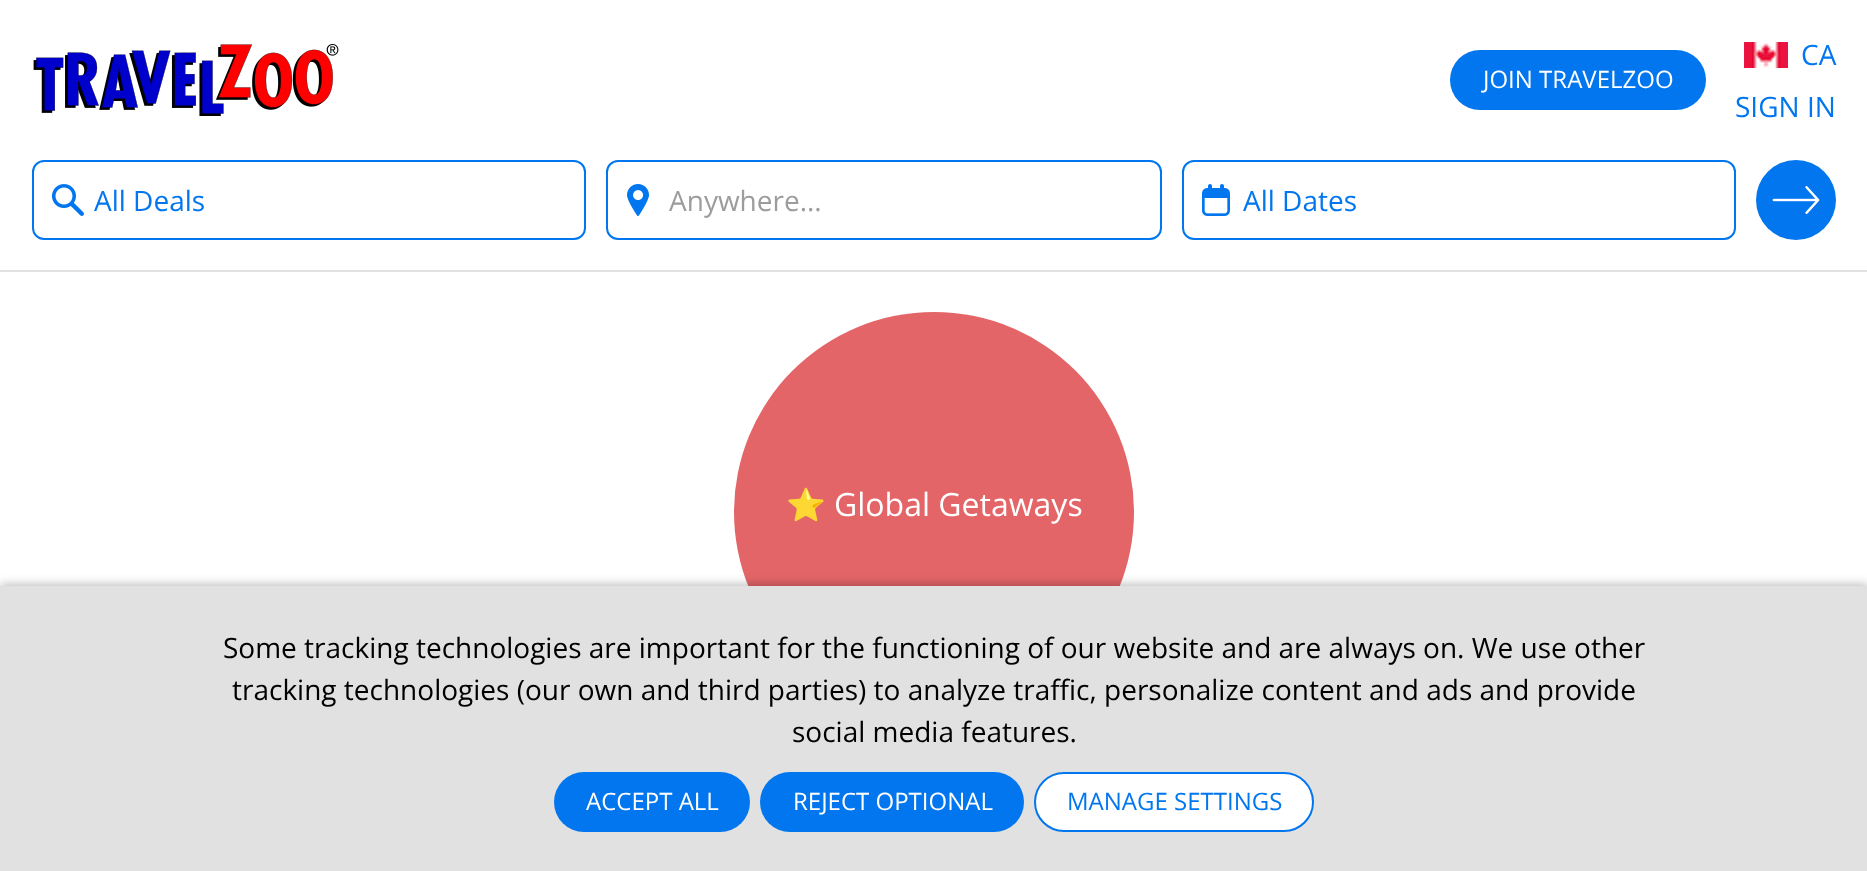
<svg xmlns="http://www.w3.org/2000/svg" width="1867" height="871">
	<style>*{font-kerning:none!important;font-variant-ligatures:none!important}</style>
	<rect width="100%" height="100%" fill="#FFFFFF" />
	<image x="33" y="44" width="306" height="72" href="assets/img1.png" />
	<rect x="1450" y="50" width="256" height="60" rx="30" fill="#0276EE" />
	<text x="1483" y="88" font-family="Open Sans" font-size="24" fill="#FFFFFF">JOIN TRAVELZOO</text>
	<image x="1744" y="42" width="44" height="26" href="assets/img2.png" />
	<g font-family="Open Sans" font-size="28" fill="#0276EE">
		<text x="1801" y="65">CA</text>
		<text x="1735" y="117">SIGN IN</text>
	</g>
	<rect x="0" y="270" width="1867" height="2" fill="#E1E1E1" />
	<rect x="33" y="161" width="552" height="78" rx="11" fill="none" stroke="#0276EE" stroke-width="2" />
	<image x="52" y="184" width="32" height="32" href="assets/img3.png" />
	<text x="94" y="211" font-family="Open Sans" font-size="28" fill="#0276EE">All Deals</text>
	<rect x="607" y="161" width="554" height="78" rx="11" fill="none" stroke="#0276EE" stroke-width="2" />
	<image x="627" y="184" width="22" height="32" href="assets/img4.png" />
	<text x="669" y="211" font-family="Open Sans" font-size="28" fill="#9C9C9C">Anywhere...</text>
	<rect x="1183" y="161" width="552" height="78" rx="11" fill="none" stroke="#0276EE" stroke-width="2" />
	<image x="1202" y="184" width="28" height="32" href="assets/img5.png" />
	<text x="1243" y="211" font-family="Open Sans" font-size="28" fill="#0276EE">All Dates</text>
	<circle cx="1796" cy="200" r="40" fill="#0276EE" />
	<image x="1772" y="186" width="48" height="28" href="assets/img6.png" />
	<circle cx="934" cy="512" r="200" fill="#E36568" />
	<text x="786" y="516" font-family="Noto Color Emoji" font-size="32" fill="#FFFFFF">⭐</text>
	<text x="834" y="516" font-family="Open Sans" font-size="32" fill="#FFFFFF">Global Getaways</text>
	<rect x="0" y="584" width="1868" height="286" fill="#000000" fill-opacity="0.25" filter="blur(5px)" />
	<rect x="0" y="586" width="1867" height="285" fill="#E1E1E1" />
	<g font-family="Open Sans" font-size="28" fill="#000000">
		<text x="223" y="658">Some tracking technologies are important for the functioning of our website and are always on. We use other</text>
		<text x="232" y="700">tracking technologies (our own and third parties) to analyze traffic, personalize content and ads and provide</text>
		<text x="792" y="742">social media features.</text>
	</g>
	<rect x="554" y="772" width="196" height="60" rx="30" fill="#0276EE" />
	<text x="586" y="810" font-family="Open Sans" font-size="24" fill="#FFFFFF">ACCEPT ALL</text>
	<rect x="760" y="772" width="264" height="60" rx="30" fill="#0276EE" />
	<text x="793" y="810" font-family="Open Sans" font-size="24" fill="#FFFFFF">REJECT OPTIONAL</text>
	<rect x="1035" y="773" width="278" height="58" rx="29" fill="#FFFFFF" stroke="#0276EE" stroke-width="2" />
	<text x="1067" y="810" font-family="Open Sans" font-size="24" fill="#0276EE">MANAGE SETTINGS</text>
</svg>
